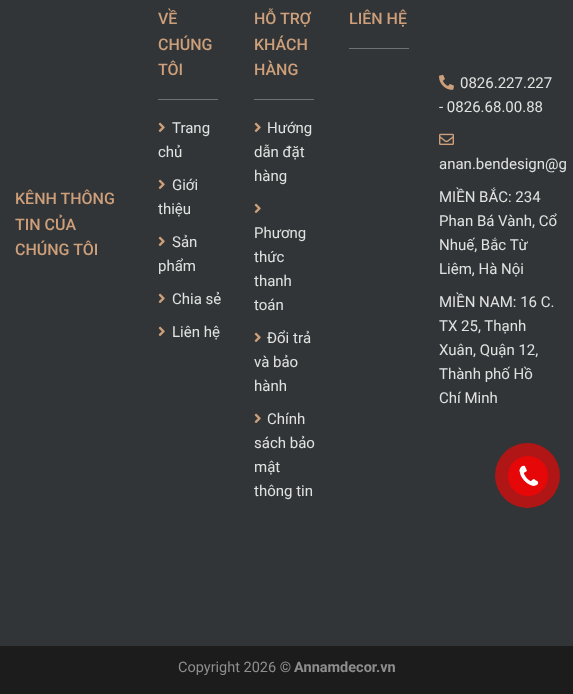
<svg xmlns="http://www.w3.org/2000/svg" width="573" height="694">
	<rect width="100%" height="100%" fill="#1C1C1C" />
	<rect x="0" y="0" width="573" height="646" fill="#313537" />
	<g font-family="Roboto" font-size="16" font-weight="500" fill="#CD9F7A">
		<text x="15" y="204">KÊNH THÔNG</text>
		<text x="15" y="230">TIN CỦA</text>
		<text x="15" y="255">CHÚNG TÔI</text>
		<text x="158" y="24">VỀ</text>
		<text x="158" y="50">CHÚNG</text>
		<text x="158" y="75">TÔI</text>
	</g>
	<rect x="158" y="99" width="60" height="1" fill="#6F7273" />
	<image x="158" y="122" width="7" height="10" href="assets/img1.png" />
	<g font-family="Roboto" font-size="15" fill="#E0E1E1">
		<text x="172" y="133">Trang</text>
		<text x="158" y="157">chủ</text>
	</g>
	<image x="158" y="179" width="7" height="10" href="assets/img1.png" />
	<g font-family="Roboto" font-size="15" fill="#E0E1E1">
		<text x="172" y="190">Giới</text>
		<text x="158" y="214">thiệu</text>
	</g>
	<image x="158" y="236" width="7" height="10" href="assets/img1.png" />
	<g font-family="Roboto" font-size="15" fill="#E0E1E1">
		<text x="172" y="247">Sản</text>
		<text x="158" y="271">phẩm</text>
	</g>
	<image x="158" y="293" width="7" height="10" href="assets/img1.png" />
	<text x="172" y="304" font-family="Roboto" font-size="15" fill="#E0E1E1">Chia sẻ</text>
	<image x="158" y="326" width="7" height="10" href="assets/img1.png" />
	<text x="172" y="337" font-family="Roboto" font-size="15" fill="#E0E1E1">Liên hệ</text>
	<g font-family="Roboto" font-size="16" font-weight="500" fill="#CD9F7A">
		<text x="254" y="24">HỖ TRỢ</text>
		<text x="254" y="50">KHÁCH</text>
		<text x="254" y="75">HÀNG</text>
	</g>
	<rect x="254" y="99" width="60" height="1" fill="#6F7273" />
	<image x="254" y="122" width="7" height="10" href="assets/img1.png" />
	<g font-family="Roboto" font-size="15" fill="#E0E1E1">
		<text x="267" y="133">Hướng</text>
		<text x="254" y="157">dẫn đặt</text>
		<text x="254" y="181">hàng</text>
	</g>
	<image x="254" y="203" width="7" height="10" href="assets/img1.png" />
	<g font-family="Roboto" font-size="15" fill="#E0E1E1">
		<text x="254" y="238">Phương</text>
		<text x="254" y="262">thức</text>
		<text x="254" y="286">thanh</text>
		<text x="254" y="310">toán</text>
	</g>
	<image x="254" y="332" width="7" height="10" href="assets/img1.png" />
	<g font-family="Roboto" font-size="15" fill="#E0E1E1">
		<text x="267" y="343">Đổi trả</text>
		<text x="254" y="367">và bảo</text>
		<text x="254" y="391">hành</text>
	</g>
	<image x="254" y="413" width="7" height="10" href="assets/img1.png" />
	<g font-family="Roboto" font-size="15" fill="#E0E1E1">
		<text x="267" y="424">Chính</text>
		<text x="254" y="448">sách bảo</text>
		<text x="254" y="472">mật</text>
		<text x="254" y="496">thông tin</text>
	</g>
	<text x="349" y="24" font-family="Roboto" font-size="16" font-weight="500" fill="#CD9F7A">LIÊN HỆ</text>
	<rect x="349" y="48" width="60" height="1" fill="#6F7273" />
	<image x="439" y="74" width="15" height="16" href="assets/img2.png" />
	<g font-family="Roboto" font-size="15" fill="#E0E1E1">
		<text x="460" y="88">0826.227.227</text>
		<text x="439" y="112">- 0826.68.00.88</text>
	</g>
	<image x="439" y="133" width="15" height="12" href="assets/img3.png" />
	<g font-family="Roboto" font-size="15" fill="#E0E1E1">
		<text x="439" y="169">anan.bendesign@g</text>
		<text x="439" y="202">MIỀN BẮC: 234</text>
		<text x="439" y="226">Phan Bá Vành, Cổ</text>
		<text x="439" y="250">Nhuế, Bắc Từ</text>
		<text x="439" y="274">Liêm, Hà Nội</text>
		<text x="439" y="307">MIỀN NAM: 16 C.</text>
		<text x="439" y="331">TX 25, Thạnh</text>
		<text x="439" y="355">Xuân, Quận 12,</text>
		<text x="439" y="379">Thành phố Hồ</text>
		<text x="439" y="403">Chí Minh</text>
	</g>
	<text x="178" y="672" font-family="Roboto" font-size="14.5" fill="#8E8E8E">Copyright 2026 ©</text>
	<text x="294" y="672" font-family="Roboto" font-size="14.5" font-weight="700" fill="#8E8E8E">Annamdecor.vn</text>
	<circle cx="527.5" cy="475.5" r="32.5" fill="#B01616" />
	<circle cx="528" cy="476" r="20" fill="#E60808" />
	<image x="519" y="465" width="20" height="21" href="assets/img4.png" />
</svg>
